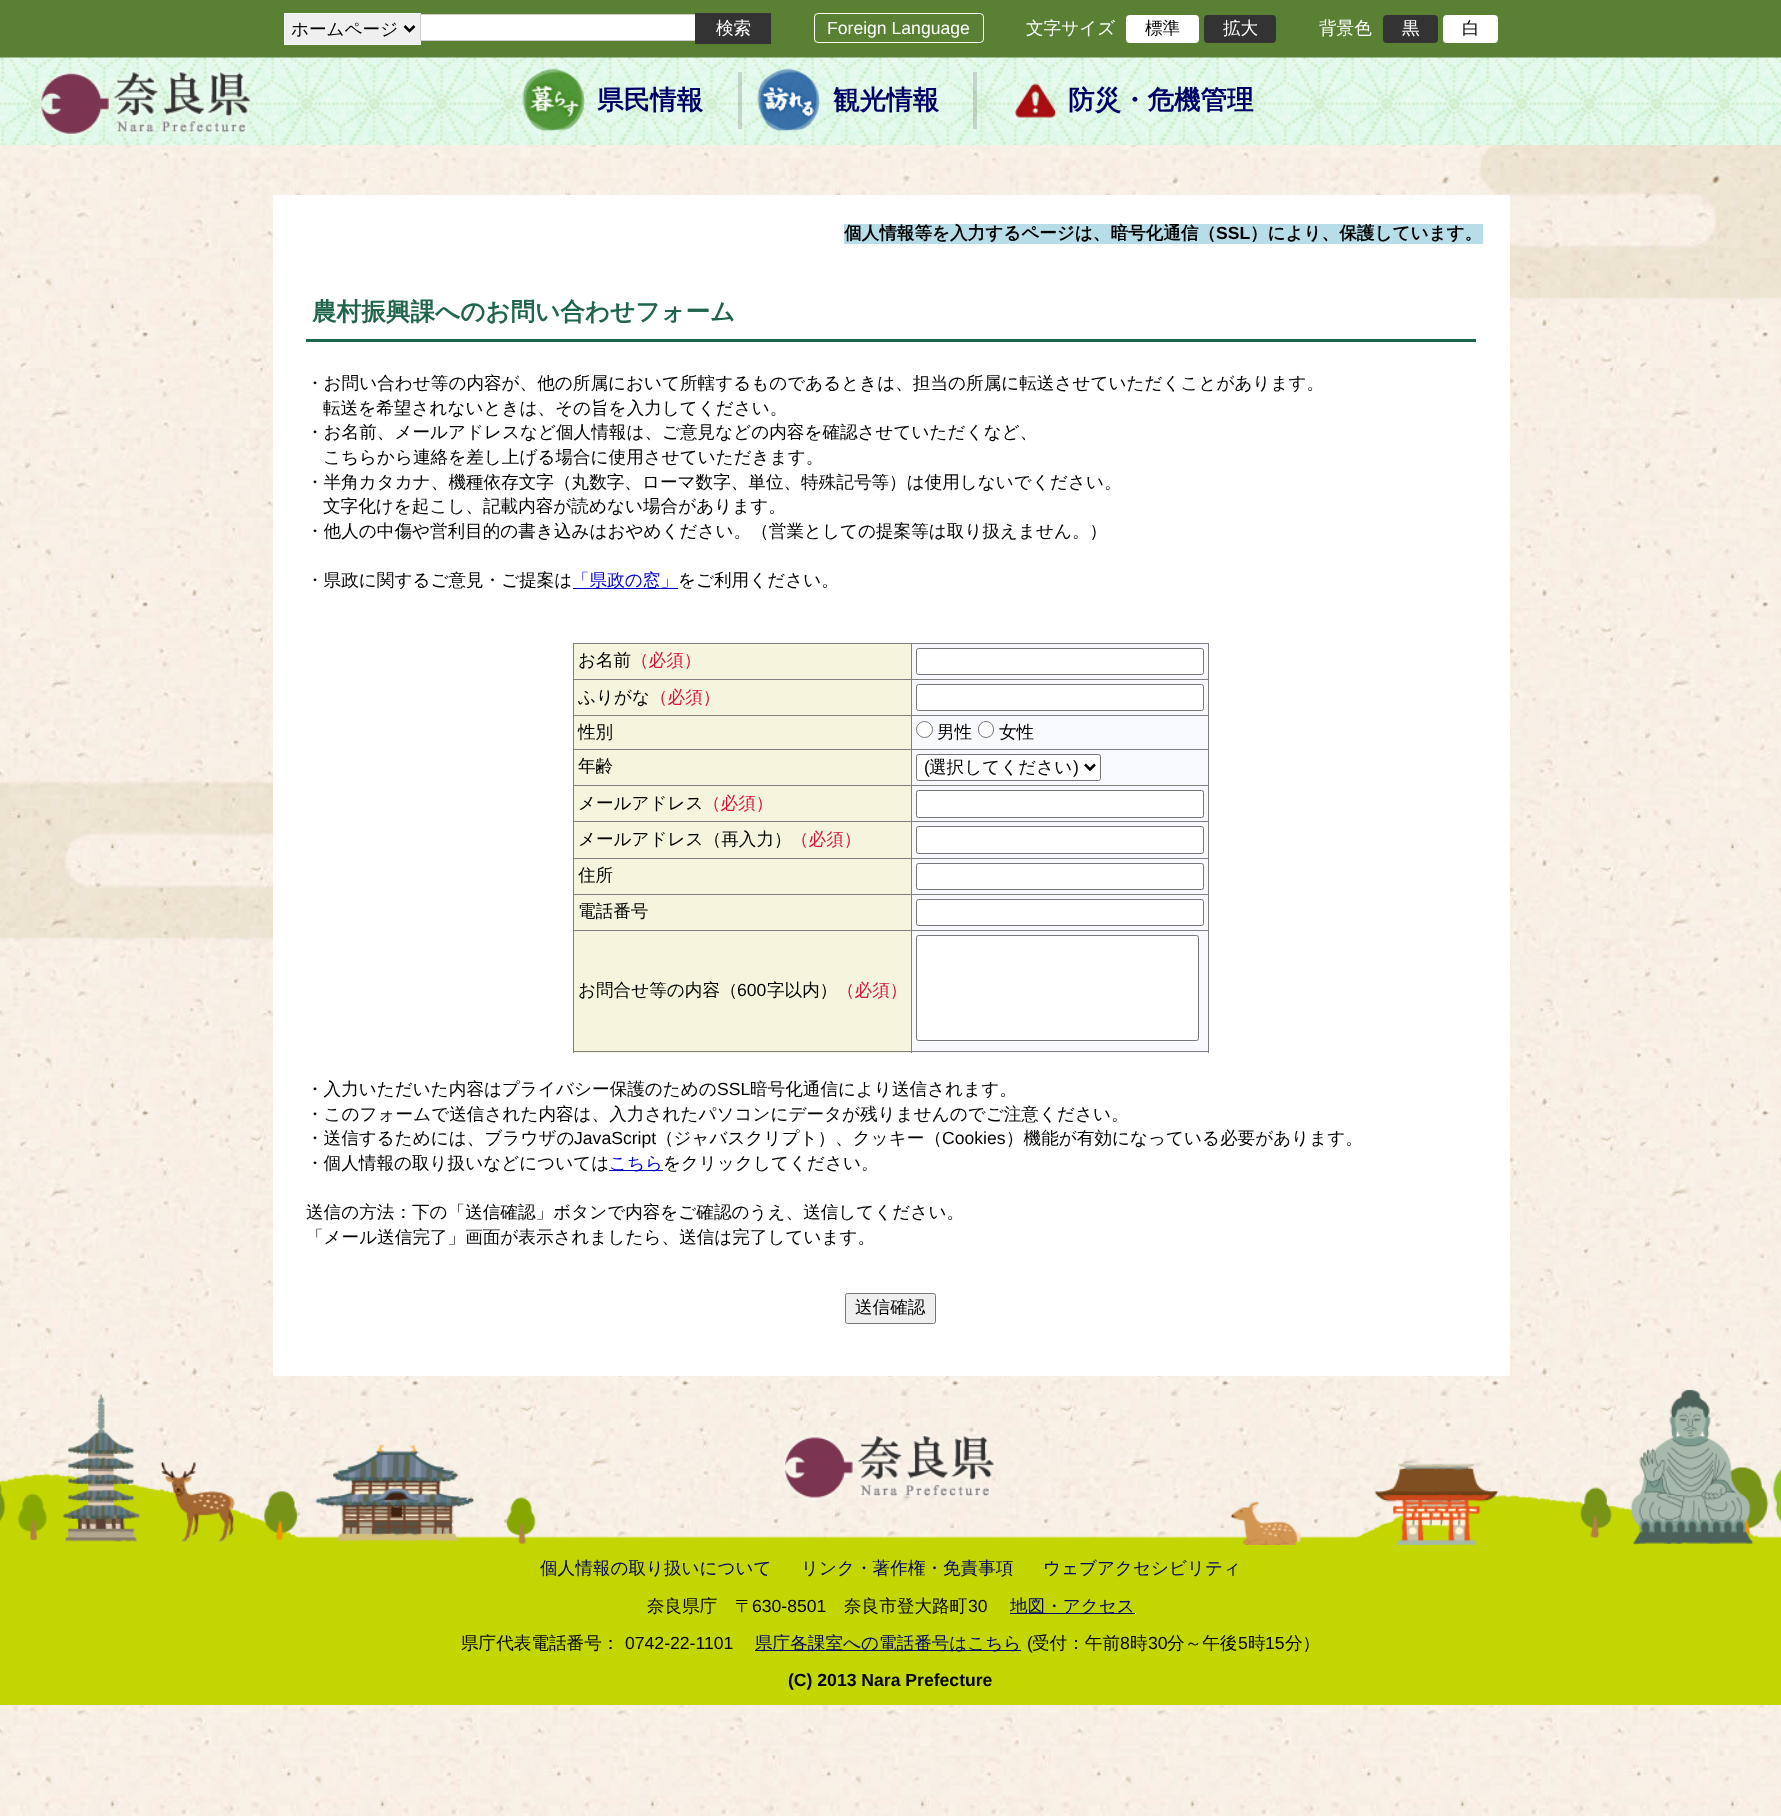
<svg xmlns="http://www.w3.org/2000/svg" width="1781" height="1816">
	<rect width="100%" height="100%" fill="#FFFFFF" />
	<image x="0" y="145" width="1781" height="1671" href="assets/img1.png" />
	<rect x="0" y="0" width="1781" height="58" fill="#5A8133" />
	<rect x="284.5" y="13.5" width="136" height="31" fill="#EFEFEF" stroke="#F0F8FF" />
	<path d="M404.5 26L409.5 31L414.5 26" fill="none" stroke="#000000" stroke-width="2.5" />
	<text x="291" y="35" font-family="WenQuanYi Zen Hei" font-size="17.6" font-weight="500" fill="#000000">ホームページ</text>
	<rect x="421" y="15" width="274" height="25" fill="#FFFFFF" />
	<rect x="420.5" y="14.5" width="277" height="26" fill="none" stroke="#CCCCCC" />
	<rect x="695" y="13" width="76" height="31" fill="#333333" />
	<text x="716" y="34" font-family="WenQuanYi Zen Hei" font-size="17.6" font-weight="500" fill="#FFFFFF">検索</text>
	<rect x="814.5" y="13.5" width="169" height="29" rx="3.5" fill="none" stroke="#FFFFFF" />
	<text x="827" y="34" font-family="Liberation Sans" font-size="17.6" fill="#FFFFFF">Foreign Language</text>
	<text x="1026" y="34" font-family="WenQuanYi Zen Hei" font-size="17.6" font-weight="500" fill="#FFFFFF">文字サイズ</text>
	<rect x="1126" y="15" width="73" height="28" rx="4" fill="#FFFFFF" />
	<text x="1145" y="34" font-family="WenQuanYi Zen Hei" font-size="17.6" font-weight="500" fill="#000000">標準</text>
	<rect x="1204" y="15" width="72" height="28" rx="4" fill="#333333" />
	<g font-family="WenQuanYi Zen Hei" font-size="17.6" font-weight="500" fill="#FFFFFF">
		<text x="1223" y="34">拡大</text>
		<text x="1319" y="34">背景色</text>
	</g>
	<rect x="1383" y="15" width="55" height="28" rx="4" fill="#333333" />
	<text x="1402" y="34" font-family="WenQuanYi Zen Hei" font-size="17.6" font-weight="500" fill="#FFFFFF">黒</text>
	<rect x="1443" y="15" width="55" height="28" rx="4" fill="#FFFFFF" />
	<text x="1462" y="34" font-family="WenQuanYi Zen Hei" font-size="17.6" font-weight="500" fill="#000000">白</text>
	<image x="0" y="57" width="1781" height="88" href="assets/img3.png" />
	<image x="39" y="70" width="213" height="66" href="assets/img2.png" />
	<image x="522" y="68" width="63" height="64" href="assets/img4.png" />
	<text x="597" y="109" font-family="WenQuanYi Zen Hei" font-size="26.5" font-weight="700" fill="#000066">県民情報</text>
	<rect x="738" y="72" width="4" height="57" fill="#686868" fill-opacity="0.25" />
	<image x="757" y="68" width="63" height="64" href="assets/img5.png" />
	<text x="833" y="109" font-family="WenQuanYi Zen Hei" font-size="26.5" font-weight="700" fill="#000066">観光情報</text>
	<rect x="973" y="72" width="4" height="57" fill="#686868" fill-opacity="0.25" />
	<image x="1014" y="83" width="43" height="35" href="assets/img6.png" />
	<text x="1068" y="109" font-family="WenQuanYi Zen Hei" font-size="26.5" font-weight="700" fill="#000066">防災・危機管理</text>
	<rect x="273" y="195" width="1237" height="1181" fill="#FFFFFF" />
	<rect x="844" y="224" width="639" height="20" fill="#B7DDE8" />
	<text x="844" y="239" font-family="WenQuanYi Zen Hei" font-size="17.6" font-weight="700" fill="#000000">個人情報等を入力するページは、暗号化通信（</text>
	<text x="1216" y="239" font-family="Liberation Sans" font-size="17.6" font-weight="700" fill="#000000">SSL</text>
	<text x="1250" y="239" font-family="WenQuanYi Zen Hei" font-size="17.6" font-weight="700" fill="#000000">）により、保護しています。</text>
	<rect x="306" y="339" width="1170" height="3" fill="#1F654B" />
	<text x="312" y="320" font-family="WenQuanYi Zen Hei" font-size="24.6" font-weight="700" fill="#1F654B">農村振興課へのお問い合わせフォーム</text>
	<g font-family="WenQuanYi Zen Hei" font-size="17.6" font-weight="500" fill="#000000">
		<text x="306" y="389">・お問い合わせ等の内容が、他の所属において所轄するものであるときは、担当の所属に転送させていただくことがあります。</text>
		<text x="323" y="414">転送を希望されないときは、その旨を入力してください。</text>
		<text x="306" y="438">・お名前、メールアドレスなど個人情報は、ご意見などの内容を確認させていただくなど、</text>
		<text x="323" y="463">こちらから連絡を差し上げる場合に使用させていただきます。</text>
		<text x="306" y="488">・半角カタカナ、機種依存文字（丸数字、ローマ数字、単位、特殊記号等）は使用しないでください。</text>
		<text x="323" y="512">文字化けを起こし、記載内容が読めない場合があります。</text>
		<text x="306" y="537">・他人の中傷や営利目的の書き込みはおやめください。（営業としての提案等は取り扱えません。）</text>
		<text x="306" y="586">・県政に関するご意見・ご提案は</text>
	</g>
	<rect x="573" y="588" width="105" height="1" fill="#0000CC" />
	<text x="572" y="586" font-family="WenQuanYi Zen Hei" font-size="17.6" font-weight="500" fill="#0000CC">「県政の窓」</text>
	<text x="678" y="586" font-family="WenQuanYi Zen Hei" font-size="17.6" font-weight="500" fill="#000000">をご利用ください。</text>
	<rect x="573" y="643" width="636" height="1" fill="#808080" />
	<rect x="1208" y="643" width="1" height="410" fill="#808080" />
	<rect x="574" y="931" width="337" height="122" fill="#F5F5DD" />
	<rect x="912" y="931" width="296" height="122" fill="#F8F8FF" />
	<rect x="573" y="1051" width="636" height="1" fill="#808080" />
	<rect x="573" y="643" width="1" height="410" fill="#808080" />
	<rect x="574" y="644" width="337" height="35" fill="#F5F5DD" />
	<text x="578" y="666" font-family="WenQuanYi Zen Hei" font-size="17.6" font-weight="500" fill="#000000">お名前</text>
	<text x="631" y="666" font-family="WenQuanYi Zen Hei" font-size="17.6" font-weight="500" fill="#DC143C">（必須）</text>
	<rect x="912" y="644" width="296" height="35" fill="#F8F8FF" />
	<rect x="911" y="679" width="298" height="1" fill="#808080" />
	<rect x="911" y="715" width="298" height="1" fill="#808080" />
	<rect x="911" y="749" width="298" height="1" fill="#808080" />
	<rect x="911" y="785" width="298" height="1" fill="#808080" />
	<rect x="911" y="821" width="298" height="1" fill="#808080" />
	<rect x="911" y="858" width="298" height="1" fill="#808080" />
	<rect x="911" y="894" width="298" height="1" fill="#808080" />
	<rect x="911" y="930" width="298" height="1" fill="#808080" />
	<rect x="911" y="930" width="1" height="123" fill="#808080" />
	<rect x="573" y="930" width="340" height="1" fill="#808080" />
	<rect x="911" y="894" width="1" height="37" fill="#808080" />
	<rect x="573" y="894" width="340" height="1" fill="#808080" />
	<rect x="911" y="858" width="1" height="37" fill="#808080" />
	<rect x="573" y="858" width="340" height="1" fill="#808080" />
	<rect x="911" y="821" width="1" height="38" fill="#808080" />
	<rect x="573" y="821" width="340" height="1" fill="#808080" />
	<rect x="911" y="785" width="1" height="38" fill="#808080" />
	<rect x="573" y="785" width="340" height="1" fill="#808080" />
	<rect x="911" y="749" width="1" height="37" fill="#808080" />
	<rect x="573" y="749" width="340" height="1" fill="#808080" />
	<rect x="911" y="715" width="1" height="35" fill="#808080" />
	<rect x="573" y="715" width="340" height="1" fill="#808080" />
	<rect x="911" y="679" width="1" height="37" fill="#808080" />
	<rect x="573" y="679" width="340" height="1" fill="#808080" />
	<rect x="911" y="643" width="1" height="37" fill="#808080" />
	<rect x="916.5" y="648.5" width="287" height="26" rx="2" fill="#FFFFFF" stroke="#767676" />
	<rect x="574" y="680" width="337" height="35" fill="#F5F5DD" />
	<text x="578" y="703" font-family="WenQuanYi Zen Hei" font-size="17.6" font-weight="500" fill="#000000">ふりがな</text>
	<text x="650" y="703" font-family="WenQuanYi Zen Hei" font-size="17.6" font-weight="500" fill="#DC143C">（必須）</text>
	<rect x="912" y="680" width="296" height="35" fill="#F8F8FF" />
	<rect x="916.5" y="684.5" width="287" height="26" rx="2" fill="#FFFFFF" stroke="#767676" />
	<rect x="574" y="716" width="337" height="33" fill="#F5F5DD" />
	<text x="578" y="738" font-family="WenQuanYi Zen Hei" font-size="17.6" font-weight="500" fill="#000000">性別</text>
	<rect x="912" y="716" width="296" height="33" fill="#F8F8FF" />
	<circle cx="924.5" cy="729.5" r="8" fill="#FFFFFF" stroke="#767676" />
	<text x="937" y="738" font-family="WenQuanYi Zen Hei" font-size="17.6" font-weight="500" fill="#000000">男性</text>
	<rect x="978.5" y="721.5" width="15" height="16" rx="7.5" fill="#FFFFFF" stroke="#767676" />
	<text x="999" y="738" font-family="WenQuanYi Zen Hei" font-size="17.6" font-weight="500" fill="#000000">女性</text>
	<rect x="574" y="750" width="337" height="35" fill="#F5F5DD" />
	<text x="578" y="772" font-family="WenQuanYi Zen Hei" font-size="17.6" font-weight="500" fill="#000000">年齢</text>
	<rect x="912" y="750" width="296" height="35" fill="#F8F8FF" />
	<rect x="916.5" y="754.5" width="184" height="26" rx="2" fill="#FFFFFF" stroke="#767676" />
	<path d="M1085 764.5L1090 769.5L1095 764.5" fill="none" stroke="#000000" stroke-width="2.5" />
	<text x="924" y="773" font-family="Liberation Sans" font-size="17.6" fill="#000000">(</text>
	<text x="929" y="773" font-family="WenQuanYi Zen Hei" font-size="17.6" font-weight="500" fill="#000000">選択してください</text>
	<text x="1073" y="773" font-family="Liberation Sans" font-size="17.6" fill="#000000">)</text>
	<rect x="574" y="786" width="337" height="35" fill="#F5F5DD" />
	<text x="578" y="809" font-family="WenQuanYi Zen Hei" font-size="17.6" font-weight="500" fill="#000000">メールアドレス</text>
	<text x="703" y="809" font-family="WenQuanYi Zen Hei" font-size="17.6" font-weight="500" fill="#DC143C">（必須）</text>
	<rect x="912" y="786" width="296" height="35" fill="#F8F8FF" />
	<rect x="916.5" y="790.5" width="287" height="27" rx="2" fill="#FFFFFF" stroke="#767676" />
	<rect x="574" y="822" width="337" height="36" fill="#F5F5DD" />
	<text x="578" y="845" font-family="WenQuanYi Zen Hei" font-size="17.6" font-weight="500" fill="#000000">メールアドレス（再入力）</text>
	<text x="791" y="845" font-family="WenQuanYi Zen Hei" font-size="17.6" font-weight="500" fill="#DC143C">（必須）</text>
	<rect x="912" y="822" width="296" height="36" fill="#F8F8FF" />
	<rect x="916.5" y="826.5" width="287" height="27" rx="2" fill="#FFFFFF" stroke="#767676" />
	<rect x="574" y="859" width="337" height="35" fill="#F5F5DD" />
	<text x="578" y="881" font-family="WenQuanYi Zen Hei" font-size="17.6" font-weight="500" fill="#000000">住所</text>
	<rect x="912" y="859" width="296" height="35" fill="#F8F8FF" />
	<rect x="916.5" y="863.5" width="287" height="26" rx="2" fill="#FFFFFF" stroke="#767676" />
	<rect x="574" y="895" width="337" height="35" fill="#F5F5DD" />
	<text x="578" y="917" font-family="WenQuanYi Zen Hei" font-size="17.6" font-weight="500" fill="#000000">電話番号</text>
	<rect x="912" y="895" width="296" height="35" fill="#F8F8FF" />
	<rect x="916.5" y="899.5" width="287" height="26" rx="2" fill="#FFFFFF" stroke="#767676" />
	<text x="578" y="996" font-family="WenQuanYi Zen Hei" font-size="17.6" font-weight="500" fill="#000000">お問合せ等の内容（</text>
	<text x="737" y="996" font-family="Liberation Sans" font-size="17.6" fill="#000000">600</text>
	<text x="767" y="996" font-family="WenQuanYi Zen Hei" font-size="17.6" font-weight="500" fill="#000000">字以内）</text>
	<text x="837" y="996" font-family="WenQuanYi Zen Hei" font-size="17.6" font-weight="500" fill="#DC143C">（必須）</text>
	<rect x="916.5" y="935.5" width="282" height="105" rx="2" fill="#FFFFFF" stroke="#767676" />
	<text x="306" y="1095" font-family="WenQuanYi Zen Hei" font-size="17.6" font-weight="500" fill="#000000">・入力いただいた内容はプライバシー保護のための</text>
	<text x="717" y="1095" font-family="Liberation Sans" font-size="17.6" fill="#000000">SSL</text>
	<g font-family="WenQuanYi Zen Hei" font-size="17.6" font-weight="500" fill="#000000">
		<text x="750" y="1095">暗号化通信により送信されます。</text>
		<text x="306" y="1120">・このフォームで送信された内容は、入力されたパソコンにデータが残りませんのでご注意ください。</text>
		<text x="306" y="1144">・送信するためには、ブラウザの</text>
	</g>
	<text x="574" y="1144" font-family="Liberation Sans" font-size="17.6" fill="#000000">JavaScript</text>
	<text x="656" y="1144" font-family="WenQuanYi Zen Hei" font-size="17.6" font-weight="500" fill="#000000">（ジャバスクリプト）、クッキー（</text>
	<text x="942" y="1144" font-family="Liberation Sans" font-size="17.6" fill="#000000">Cookies</text>
	<g font-family="WenQuanYi Zen Hei" font-size="17.6" font-weight="500" fill="#000000">
		<text x="1006" y="1144">）機能が有効になっている必要があります。</text>
		<text x="306" y="1169">・個人情報の取り扱いなどについては</text>
	</g>
	<rect x="609" y="1170" width="54" height="1" fill="#0000CC" />
	<text x="609" y="1169" font-family="WenQuanYi Zen Hei" font-size="17.6" font-weight="500" fill="#0000CC">こちら</text>
	<g font-family="WenQuanYi Zen Hei" font-size="17.6" font-weight="500" fill="#000000">
		<text x="663" y="1169">をクリックしてください。</text>
		<text x="306" y="1218">送信の方法：下の「送信確認」ボタンで内容をご確認のうえ、送信してください。</text>
		<text x="306" y="1243">「メール送信完了」画面が表示されましたら、送信は完了しています。</text>
	</g>
	<rect x="845.5" y="1293.5" width="90" height="30" rx="2" fill="#EFEFEF" stroke="#767676" />
	<text x="855" y="1313" font-family="WenQuanYi Zen Hei" font-size="17.6" font-weight="500" fill="#000000">送信確認</text>
	<image x="0" y="1389" width="1781" height="156" href="assets/img7.png" />
	<image x="783" y="1434" width="213" height="66" href="assets/img8.png" />
	<rect x="0" y="1545" width="1781" height="160" fill="#C3D600" />
	<g font-family="WenQuanYi Zen Hei" font-size="17.6" font-weight="500" fill="#000066">
		<text x="540" y="1574">個人情報の取り扱いについて</text>
		<text x="801" y="1574">リンク・著作権・免責事項</text>
		<text x="1043" y="1574">ウェブアクセシビリティ</text>
	</g>
	<text x="647" y="1612" font-family="WenQuanYi Zen Hei" font-size="17.6" font-weight="500" fill="#000000">奈良県庁　〒</text>
	<text x="752" y="1612" font-family="Liberation Sans" font-size="17.6" fill="#000000">630-8501</text>
	<text x="844" y="1612" font-family="WenQuanYi Zen Hei" font-size="17.6" font-weight="500" fill="#000000">奈良市登大路町</text>
	<text x="968" y="1612" font-family="Liberation Sans" font-size="17.6" fill="#000000">30</text>
	<rect x="1010" y="1613" width="125" height="1" fill="#000066" />
	<text x="1010" y="1612" font-family="WenQuanYi Zen Hei" font-size="17.6" font-weight="500" fill="#000066">地図・アクセス</text>
	<text x="461" y="1649" font-family="WenQuanYi Zen Hei" font-size="17.6" font-weight="500" fill="#000000">県庁代表電話番号：</text>
	<text x="625" y="1649" font-family="Liberation Sans" font-size="17.6" fill="#000000">0742-22-1101</text>
	<rect x="755" y="1650" width="266" height="1" fill="#000066" />
	<text x="755" y="1649" font-family="WenQuanYi Zen Hei" font-size="17.6" font-weight="500" fill="#000066">県庁各課室への電話番号はこちら</text>
	<text x="1027" y="1649" font-family="Liberation Sans" font-size="17.6" fill="#000000">(</text>
	<text x="1032" y="1649" font-family="WenQuanYi Zen Hei" font-size="17.6" font-weight="500" fill="#000000">受付：午前</text>
	<text x="1120" y="1649" font-family="Liberation Sans" font-size="17.6" fill="#000000">8</text>
	<text x="1130" y="1649" font-family="WenQuanYi Zen Hei" font-size="17.6" font-weight="500" fill="#000000">時</text>
	<text x="1148" y="1649" font-family="Liberation Sans" font-size="17.6" fill="#000000">30</text>
	<text x="1167" y="1649" font-family="WenQuanYi Zen Hei" font-size="17.6" font-weight="500" fill="#000000">分～午後</text>
	<text x="1238" y="1649" font-family="Liberation Sans" font-size="17.6" fill="#000000">5</text>
	<text x="1248" y="1649" font-family="WenQuanYi Zen Hei" font-size="17.6" font-weight="500" fill="#000000">時</text>
	<text x="1265" y="1649" font-family="Liberation Sans" font-size="17.6" fill="#000000">15</text>
	<text x="1285" y="1649" font-family="WenQuanYi Zen Hei" font-size="17.6" font-weight="500" fill="#000000">分）</text>
	<text x="788" y="1686" font-family="Liberation Sans" font-size="17.6" font-weight="700" fill="#000000">(C) 2013 Nara Prefecture</text>
</svg>
